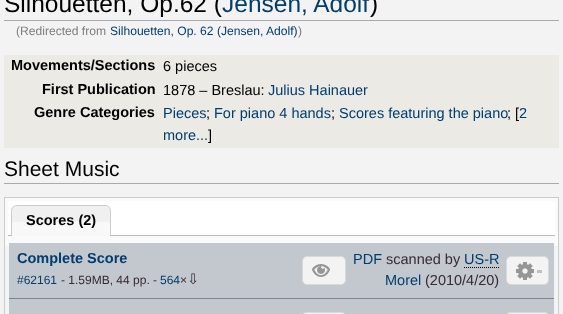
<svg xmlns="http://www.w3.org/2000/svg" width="563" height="314">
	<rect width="100%" height="100%" fill="#F3F3F3" />
	<rect x="4" y="20" width="555" height="1" fill="#AAAAAA" />
	<text x="4" y="12" font-family="Liberation Sans" font-size="24.5" fill="#000000">Silhouetten, Op.62 (</text>
	<text x="222" y="12" font-family="Liberation Sans" font-size="24.5" fill="#003D70">Jensen, Adolf</text>
	<text x="370" y="12" font-family="Liberation Sans" font-size="24.5" fill="#000000">)</text>
	<text x="16" y="35" font-family="Liberation Sans" font-size="12.1" fill="#7D7D7D">(Redirected from</text>
	<text x="110" y="35" font-family="Liberation Sans" font-size="12.1" fill="#003D70">Silhouetten, Op. 62 (Jensen, Adolf)</text>
	<text x="298" y="35" font-family="Liberation Sans" font-size="12.1" fill="#7D7D7D">)</text>
	<rect x="4" y="55" width="555" height="93" fill="#EBEAE4" />
	<text x="11" y="70" font-family="Liberation Sans" font-size="14.5" font-weight="700" fill="#000000">Movements/Sections</text>
	<text x="163" y="71" font-family="Liberation Sans" font-size="14.5" fill="#000000">6 pieces</text>
	<text x="42" y="94" font-family="Liberation Sans" font-size="14.5" font-weight="700" fill="#000000">First Publication</text>
	<text x="163" y="95" font-family="Liberation Sans" font-size="14.5" fill="#000000">1878 – Breslau:</text>
	<text x="268" y="95" font-family="Liberation Sans" font-size="14.5" fill="#003D70">Julius Hainauer</text>
	<text x="34" y="117" font-family="Liberation Sans" font-size="14.5" font-weight="700" fill="#000000">Genre Categories</text>
	<text x="163" y="118" font-family="Liberation Sans" font-size="14.5" fill="#003D70">Pieces</text>
	<text x="206" y="118" font-family="Liberation Sans" font-size="14.5" fill="#000000">;</text>
	<text x="214" y="118" font-family="Liberation Sans" font-size="14.5" fill="#003D70">For piano 4 hands</text>
	<text x="331" y="118" font-family="Liberation Sans" font-size="14.5" fill="#000000">;</text>
	<text x="339" y="118" font-family="Liberation Sans" font-size="14.5" fill="#003D70">Scores featuring the piano</text>
	<text x="507" y="118" font-family="Liberation Sans" font-size="14.5" fill="#000000">; [</text>
	<g font-family="Liberation Sans" font-size="14.5" fill="#003D70">
		<text x="519" y="118">2</text>
		<text x="163" y="140">more...</text>
	</g>
	<text x="208" y="140" font-family="Liberation Sans" font-size="14.5" fill="#000000">]</text>
	<rect x="4" y="183" width="555" height="1" fill="#AAAAAA" />
	<text x="4" y="176" font-family="Liberation Sans" font-size="21" fill="#000000">Sheet Music</text>
	<rect x="5" y="246" width="553" height="68" fill="#F2F5F7" />
	<rect x="5" y="198" width="553" height="48" fill="#F9FAFB" />
	<rect x="4.5" y="197.5" width="554" height="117" fill="none" stroke="#CCCCCC" />
	<rect x="8" y="201" width="547" height="34" fill="#FFFFFF" />
	<rect x="8" y="235" width="547" height="1" fill="#BBBBBB" />
	<path d="M17 205H105C108.5 205 111 207.5 111 211V236H11V211C11 207.5 13.5 205 17 205Z" fill="#F0F0F0" />
	<rect x="12" y="222" width="98" height="14" fill="#F8F8F8" />
	<path d="M17 205H105C108 205 111 208 111 211V236H11V211C11 208 14 205 17 205ZM17 206H105C108 206 110 208 110 211V236H12V211C12 208 14 206 17 206Z" fill="#CCCCCC" fill-rule="evenodd" />
	<text x="26" y="225" font-family="Liberation Sans" font-size="14.5" font-weight="700" fill="#000000">Scores (2)</text>
	<rect x="9" y="243" width="545" height="55" fill="#C2C8CD" />
	<rect x="9" y="298" width="545" height="1" fill="#788791" />
	<text x="17" y="263" font-family="Liberation Sans" font-size="14.5" font-weight="700" fill="#003D70">Complete Score</text>
	<text x="17" y="284" font-family="Liberation Sans" font-size="12" fill="#003D70">#62161</text>
	<text x="61" y="284" font-family="Liberation Sans" font-size="12" fill="#362B36">- 1.59MB, 44 pp. -</text>
	<text x="160" y="284" font-family="Liberation Sans" font-size="12" fill="#003D70">564</text>
	<text x="180" y="284" font-family="Liberation Sans" font-size="12" fill="#362B36">×</text>
	<text x="187" y="284" font-family="DejaVu Sans" font-size="14.5" fill="#362B36">⇩</text>
	<rect x="302.5" y="256.5" width="43" height="28" rx="4.5" fill="#F3F3F3" stroke="#D9D9D9" />
	<image x="312" y="264" width="18" height="13" href="assets/img1.png" />
	<text x="353" y="264" font-family="Liberation Sans" font-size="14.5" fill="#003D70">PDF</text>
	<text x="386" y="264" font-family="Liberation Sans" font-size="14.5" fill="#362B36">scanned by</text>
	<text x="464" y="264" font-family="Liberation Sans" font-size="14.5" fill="#003D70">US-R</text>
	<path d="M464 267.5H499" fill="none" stroke="#000000" stroke-dasharray="1 1" />
	<text x="385" y="285" font-family="Liberation Sans" font-size="14.5" fill="#003D70">Morel</text>
	<text x="425" y="285" font-family="Liberation Sans" font-size="14.5" fill="#362B36">(2010/4/20)</text>
	<rect x="506.5" y="256.5" width="42" height="28" rx="4.5" fill="#F3F3F3" stroke="#D9D9D9" />
	<image x="516" y="262" width="18" height="18" href="assets/img2.png" />
	<rect x="537" y="270" width="5" height="3" fill="#C0C0C0" />
	<rect x="9" y="299" width="545" height="15" fill="#C2C8CD" />
	<rect x="302.5" y="312.5" width="43" height="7" rx="4.5" fill="#F3F3F3" stroke="#D9D9D9" />
	<rect x="506.5" y="312.5" width="42" height="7" rx="4.5" fill="#F3F3F3" stroke="#D9D9D9" />
</svg>
